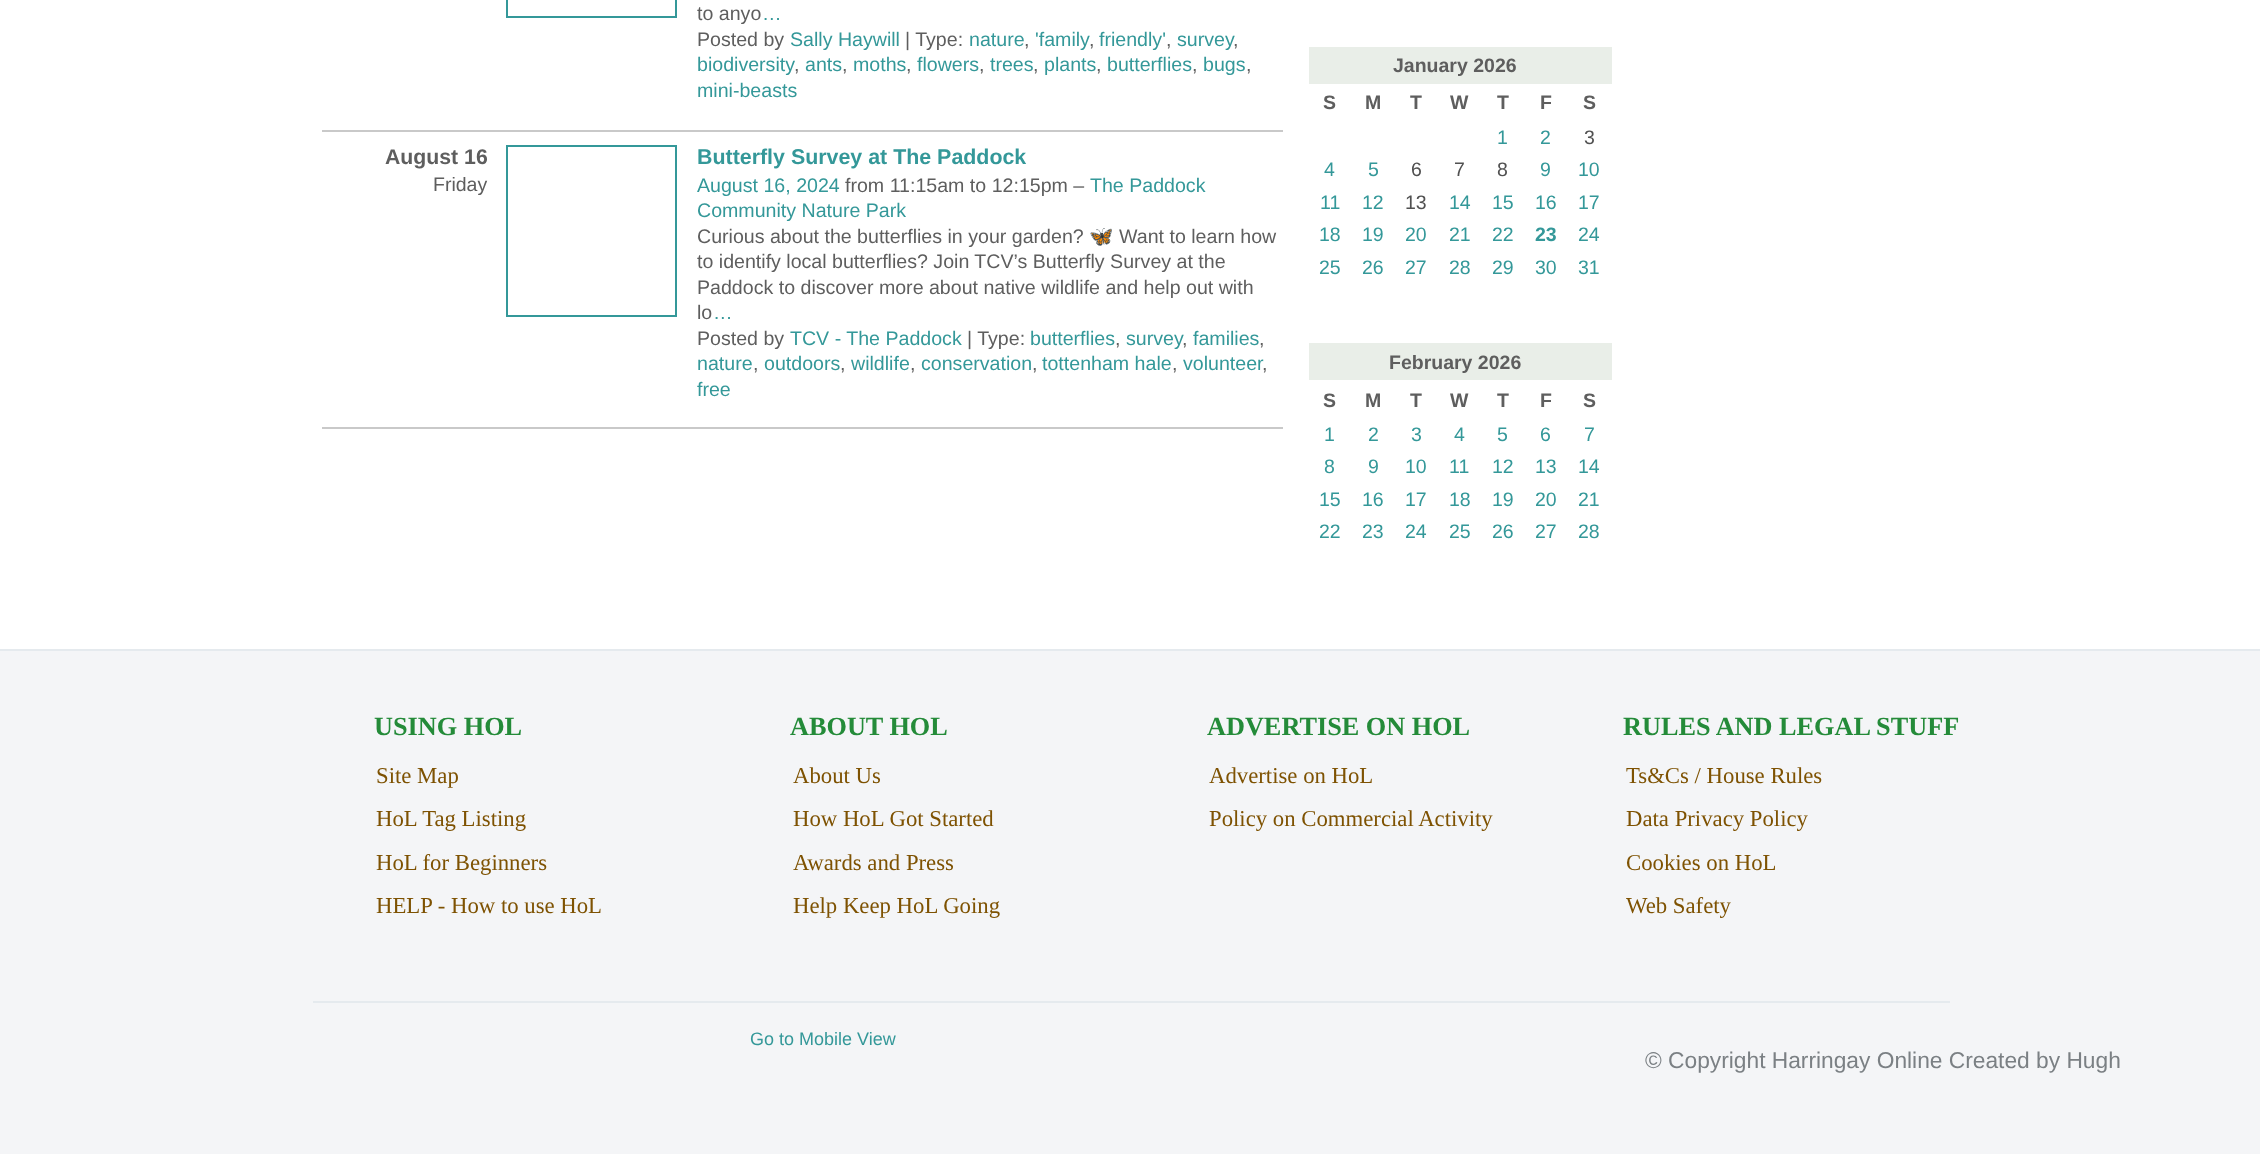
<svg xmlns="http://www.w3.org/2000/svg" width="2260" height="1154">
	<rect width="100%" height="100%" fill="#FFFFFF" />
	<rect x="322" y="130" width="961" height="2" fill="#C9C9C9" />
	<rect x="507" y="-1" width="169" height="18" fill="none" stroke="#349899" stroke-width="2" />
	<text x="697" y="20" font-family="Liberation Sans" font-size="19.6" fill="#5E5E5E">to anyo</text>
	<text x="762" y="20" font-family="Liberation Sans" font-size="19.6" fill="#349899">…</text>
	<text x="697" y="46" font-family="Liberation Sans" font-size="19.6" fill="#5E5E5E">Posted by</text>
	<text x="790" y="46" font-family="Liberation Sans" font-size="19.6" fill="#349899">Sally Haywill</text>
	<text x="905" y="46" font-family="Liberation Sans" font-size="19.6" fill="#5E5E5E">| Type:</text>
	<text x="969" y="46" font-family="Liberation Sans" font-size="19.6" fill="#349899">nature</text>
	<text x="1024" y="46" font-family="Liberation Sans" font-size="19.6" fill="#5E5E5E">,</text>
	<text x="1035" y="46" font-family="Liberation Sans" font-size="19.6" fill="#349899">'family</text>
	<text x="1089" y="46" font-family="Liberation Sans" font-size="19.6" fill="#5E5E5E">,</text>
	<text x="1099" y="46" font-family="Liberation Sans" font-size="19.6" fill="#349899">friendly'</text>
	<text x="1166" y="46" font-family="Liberation Sans" font-size="19.6" fill="#5E5E5E">,</text>
	<text x="1177" y="46" font-family="Liberation Sans" font-size="19.6" fill="#349899">survey</text>
	<text x="1233" y="46" font-family="Liberation Sans" font-size="19.6" fill="#5E5E5E">,</text>
	<text x="697" y="71" font-family="Liberation Sans" font-size="19.6" fill="#349899">biodiversity</text>
	<text x="794" y="71" font-family="Liberation Sans" font-size="19.6" fill="#5E5E5E">,</text>
	<text x="805" y="71" font-family="Liberation Sans" font-size="19.6" fill="#349899">ants</text>
	<text x="842" y="71" font-family="Liberation Sans" font-size="19.6" fill="#5E5E5E">,</text>
	<text x="853" y="71" font-family="Liberation Sans" font-size="19.6" fill="#349899">moths</text>
	<text x="906" y="71" font-family="Liberation Sans" font-size="19.6" fill="#5E5E5E">,</text>
	<text x="917" y="71" font-family="Liberation Sans" font-size="19.6" fill="#349899">flowers</text>
	<text x="979" y="71" font-family="Liberation Sans" font-size="19.6" fill="#5E5E5E">,</text>
	<text x="990" y="71" font-family="Liberation Sans" font-size="19.6" fill="#349899">trees</text>
	<text x="1033" y="71" font-family="Liberation Sans" font-size="19.6" fill="#5E5E5E">,</text>
	<text x="1044" y="71" font-family="Liberation Sans" font-size="19.6" fill="#349899">plants</text>
	<text x="1096" y="71" font-family="Liberation Sans" font-size="19.6" fill="#5E5E5E">,</text>
	<text x="1107" y="71" font-family="Liberation Sans" font-size="19.6" fill="#349899">butterflies</text>
	<text x="1192" y="71" font-family="Liberation Sans" font-size="19.6" fill="#5E5E5E">,</text>
	<text x="1203" y="71" font-family="Liberation Sans" font-size="19.6" fill="#349899">bugs</text>
	<text x="1246" y="71" font-family="Liberation Sans" font-size="19.6" fill="#5E5E5E">,</text>
	<text x="697" y="97" font-family="Liberation Sans" font-size="19.6" fill="#349899">mini-beasts</text>
	<rect x="322" y="427" width="961" height="2" fill="#C9C9C9" />
	<text x="385" y="164" font-family="Liberation Sans" font-size="21.25" font-weight="700" fill="#5E5E5E">August 16</text>
	<text x="433" y="191" font-family="Liberation Sans" font-size="19.5" fill="#5E5E5E">Friday</text>
	<rect x="507" y="146" width="169" height="170" fill="none" stroke="#349899" stroke-width="2" />
	<text x="697" y="164" font-family="Liberation Sans" font-size="21.4" font-weight="700" fill="#349899">Butterfly Survey at The Paddock</text>
	<text x="697" y="192" font-family="Liberation Sans" font-size="19.6" fill="#349899">August 16, 2024</text>
	<text x="845" y="192" font-family="Liberation Sans" font-size="19.6" fill="#5E5E5E">from 11:15am to 12:15pm –</text>
	<g font-family="Liberation Sans" font-size="19.6" fill="#349899">
		<text x="1090" y="192">The Paddock</text>
		<text x="697" y="217">Community Nature Park</text>
	</g>
	<text x="697" y="243" font-family="Liberation Sans" font-size="19.6" fill="#5E5E5E">Curious about the butterflies in your garden?</text>
	<text x="1089" y="243" font-family="Noto Color Emoji" font-size="19.6" fill="#5E5E5E">🦋</text>
	<g font-family="Liberation Sans" font-size="19.6" fill="#5E5E5E">
		<text x="1119" y="243">Want to learn how</text>
		<text x="697" y="268">to identify local butterflies? Join TCV’s Butterfly Survey at the</text>
		<text x="697" y="294">Paddock to discover more about native wildlife and help out with</text>
		<text x="697" y="319">lo</text>
	</g>
	<text x="713" y="319" font-family="Liberation Sans" font-size="19.6" fill="#349899">…</text>
	<text x="697" y="345" font-family="Liberation Sans" font-size="19.6" fill="#5E5E5E">Posted by</text>
	<text x="790" y="345" font-family="Liberation Sans" font-size="19.6" fill="#349899">TCV - The Paddock</text>
	<text x="967" y="345" font-family="Liberation Sans" font-size="19.6" fill="#5E5E5E">| Type:</text>
	<text x="1030" y="345" font-family="Liberation Sans" font-size="19.6" fill="#349899">butterflies</text>
	<text x="1115" y="345" font-family="Liberation Sans" font-size="19.6" fill="#5E5E5E">,</text>
	<text x="1126" y="345" font-family="Liberation Sans" font-size="19.6" fill="#349899">survey</text>
	<text x="1182" y="345" font-family="Liberation Sans" font-size="19.6" fill="#5E5E5E">,</text>
	<text x="1193" y="345" font-family="Liberation Sans" font-size="19.6" fill="#349899">families</text>
	<text x="1259" y="345" font-family="Liberation Sans" font-size="19.6" fill="#5E5E5E">,</text>
	<text x="697" y="370" font-family="Liberation Sans" font-size="19.6" fill="#349899">nature</text>
	<text x="753" y="370" font-family="Liberation Sans" font-size="19.6" fill="#5E5E5E">,</text>
	<text x="764" y="370" font-family="Liberation Sans" font-size="19.6" fill="#349899">outdoors</text>
	<text x="840" y="370" font-family="Liberation Sans" font-size="19.6" fill="#5E5E5E">,</text>
	<text x="851" y="370" font-family="Liberation Sans" font-size="19.6" fill="#349899">wildlife</text>
	<text x="910" y="370" font-family="Liberation Sans" font-size="19.6" fill="#5E5E5E">,</text>
	<text x="921" y="370" font-family="Liberation Sans" font-size="19.6" fill="#349899">conservation</text>
	<text x="1032" y="370" font-family="Liberation Sans" font-size="19.6" fill="#5E5E5E">,</text>
	<text x="1042" y="370" font-family="Liberation Sans" font-size="19.6" fill="#349899">tottenham hale</text>
	<text x="1172" y="370" font-family="Liberation Sans" font-size="19.6" fill="#5E5E5E">,</text>
	<text x="1183" y="370" font-family="Liberation Sans" font-size="19.6" fill="#349899">volunteer</text>
	<text x="1262" y="370" font-family="Liberation Sans" font-size="19.6" fill="#5E5E5E">,</text>
	<text x="697" y="396" font-family="Liberation Sans" font-size="19.6" fill="#349899">free</text>
	<rect x="1309" y="47" width="303" height="37" fill="#E9EEE8" />
	<g font-family="Liberation Sans" font-size="19.5" font-weight="700" fill="#5E5E5E">
		<text x="1393" y="72">January 2026</text>
		<text x="1323" y="109">S</text>
		<text x="1365" y="109">M</text>
		<text x="1410" y="109">T</text>
		<text x="1450" y="109">W</text>
		<text x="1497" y="109">T</text>
		<text x="1540" y="109">F</text>
		<text x="1583" y="109">S</text>
	</g>
	<g font-family="Liberation Sans" font-size="19.5" fill="#349899">
		<text x="1497" y="144">1</text>
		<text x="1540" y="144">2</text>
	</g>
	<text x="1584" y="144" font-family="Liberation Sans" font-size="19.5" fill="#515151">3</text>
	<g font-family="Liberation Sans" font-size="19.5" fill="#349899">
		<text x="1324" y="176">4</text>
		<text x="1368" y="176">5</text>
	</g>
	<g font-family="Liberation Sans" font-size="19.5" fill="#515151">
		<text x="1411" y="176">6</text>
		<text x="1454" y="176">7</text>
		<text x="1497" y="176">8</text>
	</g>
	<g font-family="Liberation Sans" font-size="19.5" fill="#349899">
		<text x="1540" y="176">9</text>
		<text x="1578" y="176">10</text>
		<text x="1320" y="209">11</text>
		<text x="1362" y="209">12</text>
	</g>
	<text x="1405" y="209" font-family="Liberation Sans" font-size="19.5" fill="#515151">13</text>
	<g font-family="Liberation Sans" font-size="19.5" fill="#349899">
		<text x="1449" y="209">14</text>
		<text x="1492" y="209">15</text>
		<text x="1535" y="209">16</text>
		<text x="1578" y="209">17</text>
		<text x="1319" y="241">18</text>
		<text x="1362" y="241">19</text>
		<text x="1405" y="241">20</text>
		<text x="1449" y="241">21</text>
		<text x="1492" y="241">22</text>
	</g>
	<text x="1535" y="241" font-family="Liberation Sans" font-size="19.5" font-weight="700" fill="#349899">23</text>
	<g font-family="Liberation Sans" font-size="19.5" fill="#349899">
		<text x="1578" y="241">24</text>
		<text x="1319" y="274">25</text>
		<text x="1362" y="274">26</text>
		<text x="1405" y="274">27</text>
		<text x="1449" y="274">28</text>
		<text x="1492" y="274">29</text>
		<text x="1535" y="274">30</text>
		<text x="1578" y="274">31</text>
	</g>
	<rect x="1309" y="343" width="303" height="37" fill="#E9EEE8" />
	<g font-family="Liberation Sans" font-size="19.5" font-weight="700" fill="#5E5E5E">
		<text x="1389" y="369">February 2026</text>
		<text x="1323" y="407">S</text>
		<text x="1365" y="407">M</text>
		<text x="1410" y="407">T</text>
		<text x="1450" y="407">W</text>
		<text x="1497" y="407">T</text>
		<text x="1540" y="407">F</text>
		<text x="1583" y="407">S</text>
	</g>
	<g font-family="Liberation Sans" font-size="19.5" fill="#349899">
		<text x="1324" y="441">1</text>
		<text x="1368" y="441">2</text>
		<text x="1411" y="441">3</text>
		<text x="1454" y="441">4</text>
		<text x="1497" y="441">5</text>
		<text x="1540" y="441">6</text>
		<text x="1584" y="441">7</text>
		<text x="1324" y="473">8</text>
		<text x="1368" y="473">9</text>
		<text x="1405" y="473">10</text>
		<text x="1449" y="473">11</text>
		<text x="1492" y="473">12</text>
		<text x="1535" y="473">13</text>
		<text x="1578" y="473">14</text>
		<text x="1319" y="506">15</text>
		<text x="1362" y="506">16</text>
		<text x="1405" y="506">17</text>
		<text x="1449" y="506">18</text>
		<text x="1492" y="506">19</text>
		<text x="1535" y="506">20</text>
		<text x="1578" y="506">21</text>
		<text x="1319" y="538">22</text>
		<text x="1362" y="538">23</text>
		<text x="1405" y="538">24</text>
		<text x="1449" y="538">25</text>
		<text x="1492" y="538">26</text>
		<text x="1535" y="538">27</text>
		<text x="1578" y="538">28</text>
	</g>
	<rect x="0" y="651" width="2260" height="503" fill="#F4F5F7" />
	<rect x="0" y="649" width="2260" height="2" fill="#E5EAEE" />
	<rect x="313" y="1001" width="1637" height="2" fill="#E5EAEE" />
	<text x="374" y="735" font-family="Liberation Serif" font-size="26.25" font-weight="700" fill="#248B39">USING HOL</text>
	<g font-family="Liberation Serif" font-size="22.75" fill="#7E5202">
		<text x="376" y="783">Site Map</text>
		<text x="376" y="826">HoL Tag Listing</text>
		<text x="376" y="870">HoL for Beginners</text>
		<text x="376" y="913">HELP - How to use HoL</text>
	</g>
	<text x="790" y="735" font-family="Liberation Serif" font-size="26.25" font-weight="700" fill="#248B39">ABOUT HOL</text>
	<g font-family="Liberation Serif" font-size="22.75" fill="#7E5202">
		<text x="793" y="783">About Us</text>
		<text x="793" y="826">How HoL Got Started</text>
		<text x="793" y="870">Awards and Press</text>
		<text x="793" y="913">Help Keep HoL Going</text>
	</g>
	<text x="1207" y="735" font-family="Liberation Serif" font-size="26.25" font-weight="700" fill="#248B39">ADVERTISE ON HOL</text>
	<g font-family="Liberation Serif" font-size="22.75" fill="#7E5202">
		<text x="1209" y="783">Advertise on HoL</text>
		<text x="1209" y="826">Policy on Commercial Activity</text>
	</g>
	<text x="1623" y="735" font-family="Liberation Serif" font-size="26.25" font-weight="700" fill="#248B39">RULES AND LEGAL STUFF</text>
	<g font-family="Liberation Serif" font-size="22.75" fill="#7E5202">
		<text x="1626" y="783">Ts&amp;Cs / House Rules</text>
		<text x="1626" y="826">Data Privacy Policy</text>
		<text x="1626" y="870">Cookies on HoL</text>
		<text x="1626" y="913">Web Safety</text>
	</g>
	<text x="750" y="1045" font-family="Liberation Sans" font-size="18" fill="#349899">Go to Mobile View</text>
	<text x="1645" y="1068" font-family="Liberation Sans" font-size="22.75" fill="#7B8084">© Copyright Harringay Online Created by Hugh</text>
</svg>
